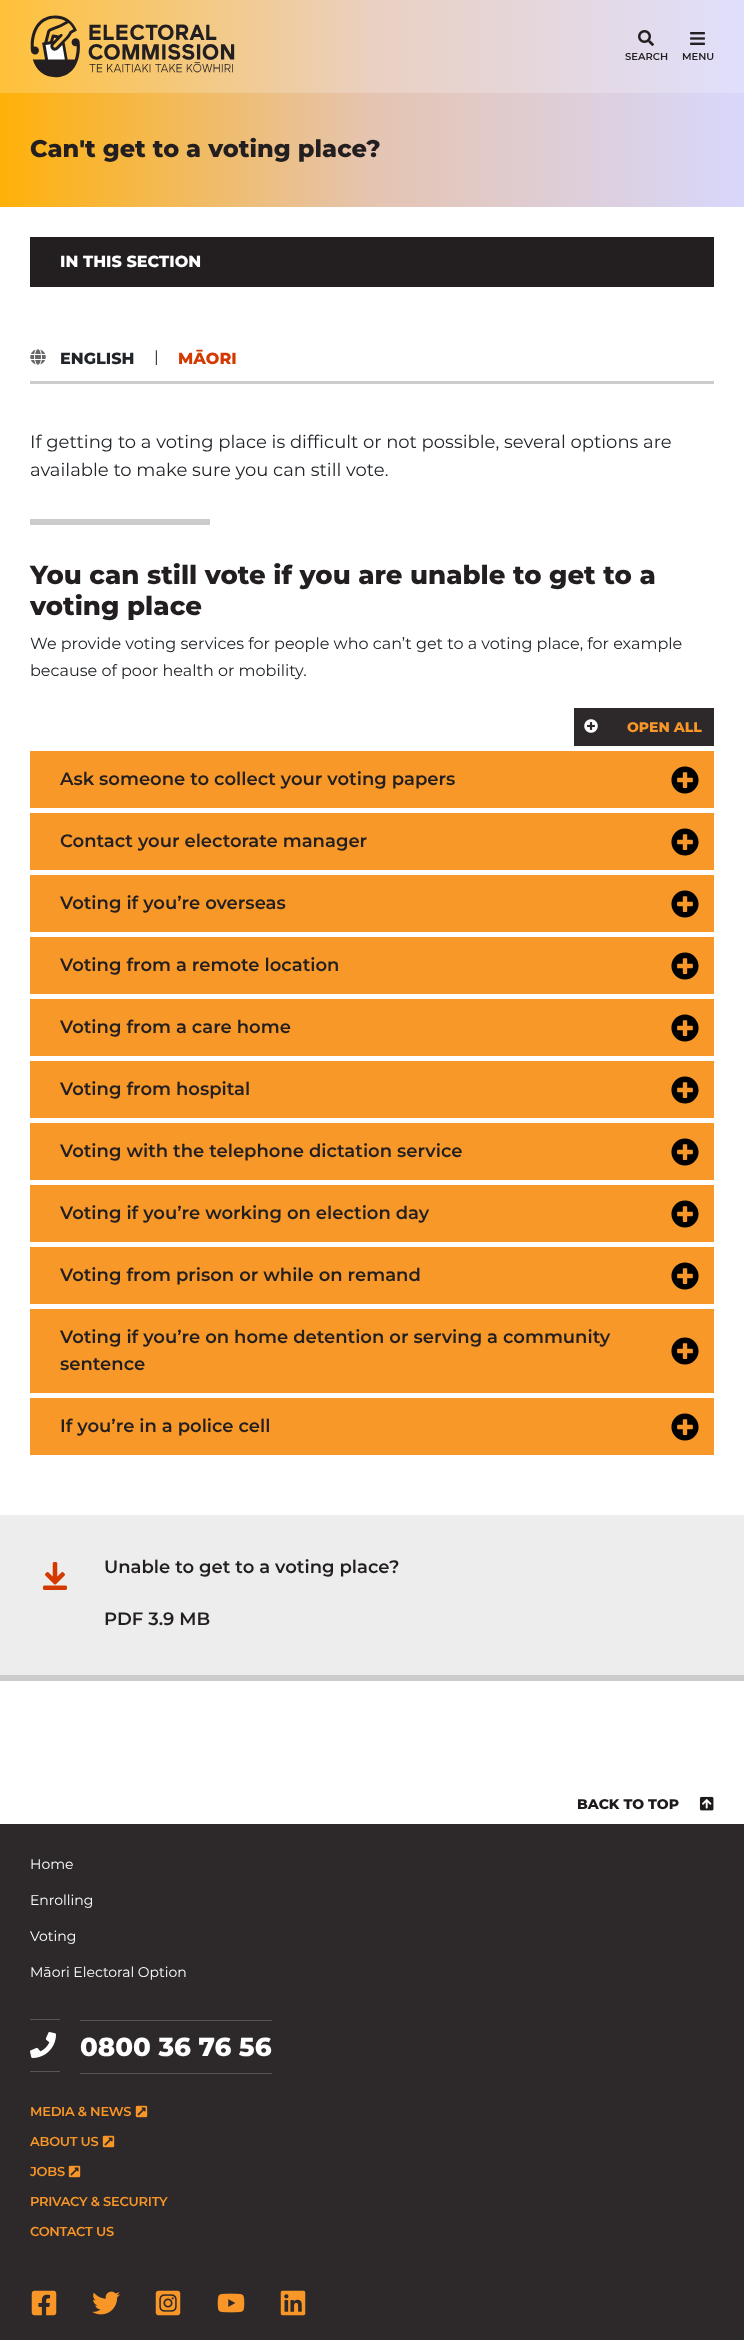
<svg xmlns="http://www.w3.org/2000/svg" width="744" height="2340">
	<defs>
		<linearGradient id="g1" gradientUnits="userSpaceOnUse" x1="0" y1="47" x2="744" y2="46"><stop offset="0" stop-color="#FFC13A" /><stop offset="0.5" stop-color="#EAD0C1" /><stop offset="1" stop-color="#E0DFFC" /></linearGradient>
		<linearGradient id="g2" gradientUnits="userSpaceOnUse" x1="0" y1="150" x2="744" y2="150"><stop offset="0" stop-color="#FFB109" /><stop offset="0.5" stop-color="#E5C4B1" /><stop offset="1" stop-color="#D8D7FB" /></linearGradient>
	</defs>
	<rect width="100%" height="100%" fill="#FFFFFF" />
	<rect x="0" y="0" width="744" height="93" fill="url(#g1)" />
	<image x="30" y="15" width="205" height="63" href="assets/img1.png" />
	<image x="638" y="30" width="16" height="16" href="assets/img2.png" />
	<text x="625" y="60" font-family="Montserrat" font-size="10" font-weight="600" fill="#231F20">SEARCH</text>
	<image x="690" y="32" width="15" height="13" href="assets/img3.png" />
	<text x="682" y="60" font-family="Montserrat" font-size="10" font-weight="600" fill="#231F20">MENU</text>
	<rect x="0" y="93" width="744" height="114" fill="url(#g2)" />
	<text x="30" y="157" font-family="Montserrat" font-size="24" font-weight="800" fill="#231F20">Can't get to a voting place?</text>
	<rect x="30" y="237" width="684" height="50" fill="#231F20" />
	<text x="60" y="267" font-family="Montserrat" font-size="16" font-weight="800" fill="#FFFFFF">IN THIS SECTION</text>
	<rect x="30" y="381" width="684" height="3" fill="#CCCCCC" />
	<image x="30" y="349" width="16" height="16" href="assets/img4.png" />
	<text x="60" y="364" font-family="Montserrat" font-size="16" font-weight="800" fill="#212529">ENGLISH</text>
	<text x="154" y="362" font-family="Montserrat" font-size="16" fill="#231F20">|</text>
	<text x="178" y="364" font-family="Montserrat" font-size="16" font-weight="800" fill="#D43900">MĀORI</text>
	<g font-family="Montserrat" font-size="18" fill="#212529">
		<text x="30" y="448">If getting to a voting place is difficult or not possible, several options are</text>
		<text x="30" y="476">available to make sure you can still vote.</text>
	</g>
	<rect x="30" y="519" width="180" height="6" fill="#CCCCCC" />
	<g font-family="Montserrat" font-size="26" font-weight="800" fill="#231F20">
		<text x="30" y="584">You can still vote if you are unable to get to a</text>
		<text x="30" y="615">voting place</text>
	</g>
	<g font-family="Montserrat" font-size="16" fill="#212529">
		<text x="30" y="649">We provide voting services for people who can’t get to a voting place, for example</text>
		<text x="30" y="676">because of poor health or mobility.</text>
	</g>
	<rect x="574" y="708" width="140" height="38" fill="#2D292A" />
	<image x="584" y="719" width="14" height="14" href="assets/img5.png" />
	<text x="627" y="732" font-family="Montserrat" font-size="14" font-weight="800" fill="#F89628">OPEN ALL</text>
	<rect x="30" y="751" width="684" height="57" fill="#F89828" />
	<text x="60" y="785" font-family="Montserrat" font-size="18" font-weight="600" fill="#231F20">Ask someone to collect your voting papers</text>
	<image x="671" y="766" width="28" height="28" href="assets/img6.png" />
	<rect x="30" y="813" width="684" height="57" fill="#F89828" />
	<text x="60" y="847" font-family="Montserrat" font-size="18" font-weight="600" fill="#231F20">Contact your electorate manager</text>
	<image x="671" y="828" width="28" height="28" href="assets/img6.png" />
	<rect x="30" y="875" width="684" height="57" fill="#F89828" />
	<text x="60" y="909" font-family="Montserrat" font-size="18" font-weight="600" fill="#231F20">Voting if you’re overseas</text>
	<image x="671" y="890" width="28" height="28" href="assets/img6.png" />
	<rect x="30" y="937" width="684" height="57" fill="#F89828" />
	<text x="60" y="971" font-family="Montserrat" font-size="18" font-weight="600" fill="#231F20">Voting from a remote location</text>
	<image x="671" y="952" width="28" height="28" href="assets/img6.png" />
	<rect x="30" y="999" width="684" height="57" fill="#F89828" />
	<text x="60" y="1033" font-family="Montserrat" font-size="18" font-weight="600" fill="#231F20">Voting from a care home</text>
	<image x="671" y="1014" width="28" height="28" href="assets/img7.png" />
	<rect x="30" y="1061" width="684" height="57" fill="#F89828" />
	<text x="60" y="1095" font-family="Montserrat" font-size="18" font-weight="600" fill="#231F20">Voting from hospital</text>
	<image x="671" y="1076" width="28" height="28" href="assets/img6.png" />
	<rect x="30" y="1123" width="684" height="57" fill="#F89828" />
	<text x="60" y="1157" font-family="Montserrat" font-size="18" font-weight="600" fill="#231F20">Voting with the telephone dictation service</text>
	<image x="671" y="1138" width="28" height="28" href="assets/img6.png" />
	<rect x="30" y="1185" width="684" height="57" fill="#F89828" />
	<text x="60" y="1219" font-family="Montserrat" font-size="18" font-weight="600" fill="#231F20">Voting if you’re working on election day</text>
	<image x="671" y="1200" width="28" height="28" href="assets/img6.png" />
	<rect x="30" y="1247" width="684" height="57" fill="#F89828" />
	<text x="60" y="1281" font-family="Montserrat" font-size="18" font-weight="600" fill="#231F20">Voting from prison or while on remand</text>
	<image x="671" y="1262" width="28" height="28" href="assets/img8.png" />
	<rect x="30" y="1309" width="684" height="84" fill="#F89828" />
	<text x="60" y="1343" font-family="Montserrat" font-size="18" font-weight="600" fill="#231F20">Voting if you’re on home detention or serving a community</text>
	<image x="671" y="1337" width="28" height="28" href="assets/img6.png" />
	<text x="60" y="1370" font-family="Montserrat" font-size="18" font-weight="600" fill="#231F20">sentence</text>
	<rect x="30" y="1398" width="684" height="57" fill="#F89828" />
	<text x="60" y="1432" font-family="Montserrat" font-size="18" font-weight="600" fill="#231F20">If you’re in a police cell</text>
	<image x="671" y="1413" width="28" height="28" href="assets/img6.png" />
	<rect x="0" y="1515" width="744" height="160" fill="#EDEDED" />
	<rect x="0" y="1675" width="744" height="6" fill="#CCCCCC" />
	<image x="43" y="1562" width="24" height="28" href="assets/img9.png" />
	<g font-family="Montserrat" font-size="18" font-weight="600" fill="#231F20">
		<text x="104" y="1573">Unable to get to a voting place?</text>
		<text x="104" y="1625">PDF 3.9 MB</text>
	</g>
	<text x="577" y="1809" font-family="Montserrat" font-size="14" font-weight="800" fill="#1E191A">BACK TO TOP</text>
	<image x="699" y="1796" width="15" height="15" href="assets/img10.png" />
	<rect x="0" y="1824" width="744" height="516" fill="#2D292A" />
	<g font-family="Montserrat" font-size="14" fill="#FFFFFF">
		<text x="30" y="1869">Home</text>
		<text x="30" y="1905">Enrolling</text>
		<text x="30" y="1941">Voting</text>
		<text x="30" y="1977">Māori Electoral Option</text>
	</g>
	<rect x="30" y="2019" width="30" height="1" fill="#575455" />
	<rect x="30" y="2071" width="30" height="1" fill="#575455" />
	<rect x="80" y="2020" width="192" height="1" fill="#575455" />
	<rect x="80" y="2073" width="192" height="1" fill="#575455" />
	<image x="30" y="2032" width="26" height="26" href="assets/img11.png" />
	<text x="80" y="2056" font-family="Montserrat" font-size="26" font-weight="800" fill="#FFFFFF">0800 36 76 56</text>
	<text x="30" y="2116" font-family="Montserrat" font-size="13" font-weight="600" letter-spacing="-0.25" fill="#F89628">MEDIA &amp; NEWS</text>
	<image x="135" y="2105" width="13" height="13" href="assets/img12.png" />
	<text x="30" y="2146" font-family="Montserrat" font-size="13" font-weight="600" letter-spacing="-0.25" fill="#F89628">ABOUT US</text>
	<image x="102" y="2135" width="13" height="13" href="assets/img12.png" />
	<text x="30" y="2176" font-family="Montserrat" font-size="13" font-weight="600" letter-spacing="-0.25" fill="#F89628">JOBS</text>
	<image x="68" y="2165" width="13" height="13" href="assets/img12.png" />
	<g font-family="Montserrat" font-size="13" font-weight="600" letter-spacing="-0.25" fill="#F89628">
		<text x="30" y="2206">PRIVACY &amp; SECURITY</text>
		<text x="30" y="2236">CONTACT US</text>
	</g>
	<image x="31" y="2290" width="26" height="26" href="assets/img13.png" />
	<image x="92" y="2291" width="28" height="24" href="assets/img14.png" />
	<image x="155" y="2290" width="26" height="26" href="assets/img15.png" />
	<image x="217" y="2293" width="28" height="20" href="assets/img16.png" />
	<image x="280" y="2290" width="26" height="26" href="assets/img17.png" />
</svg>
